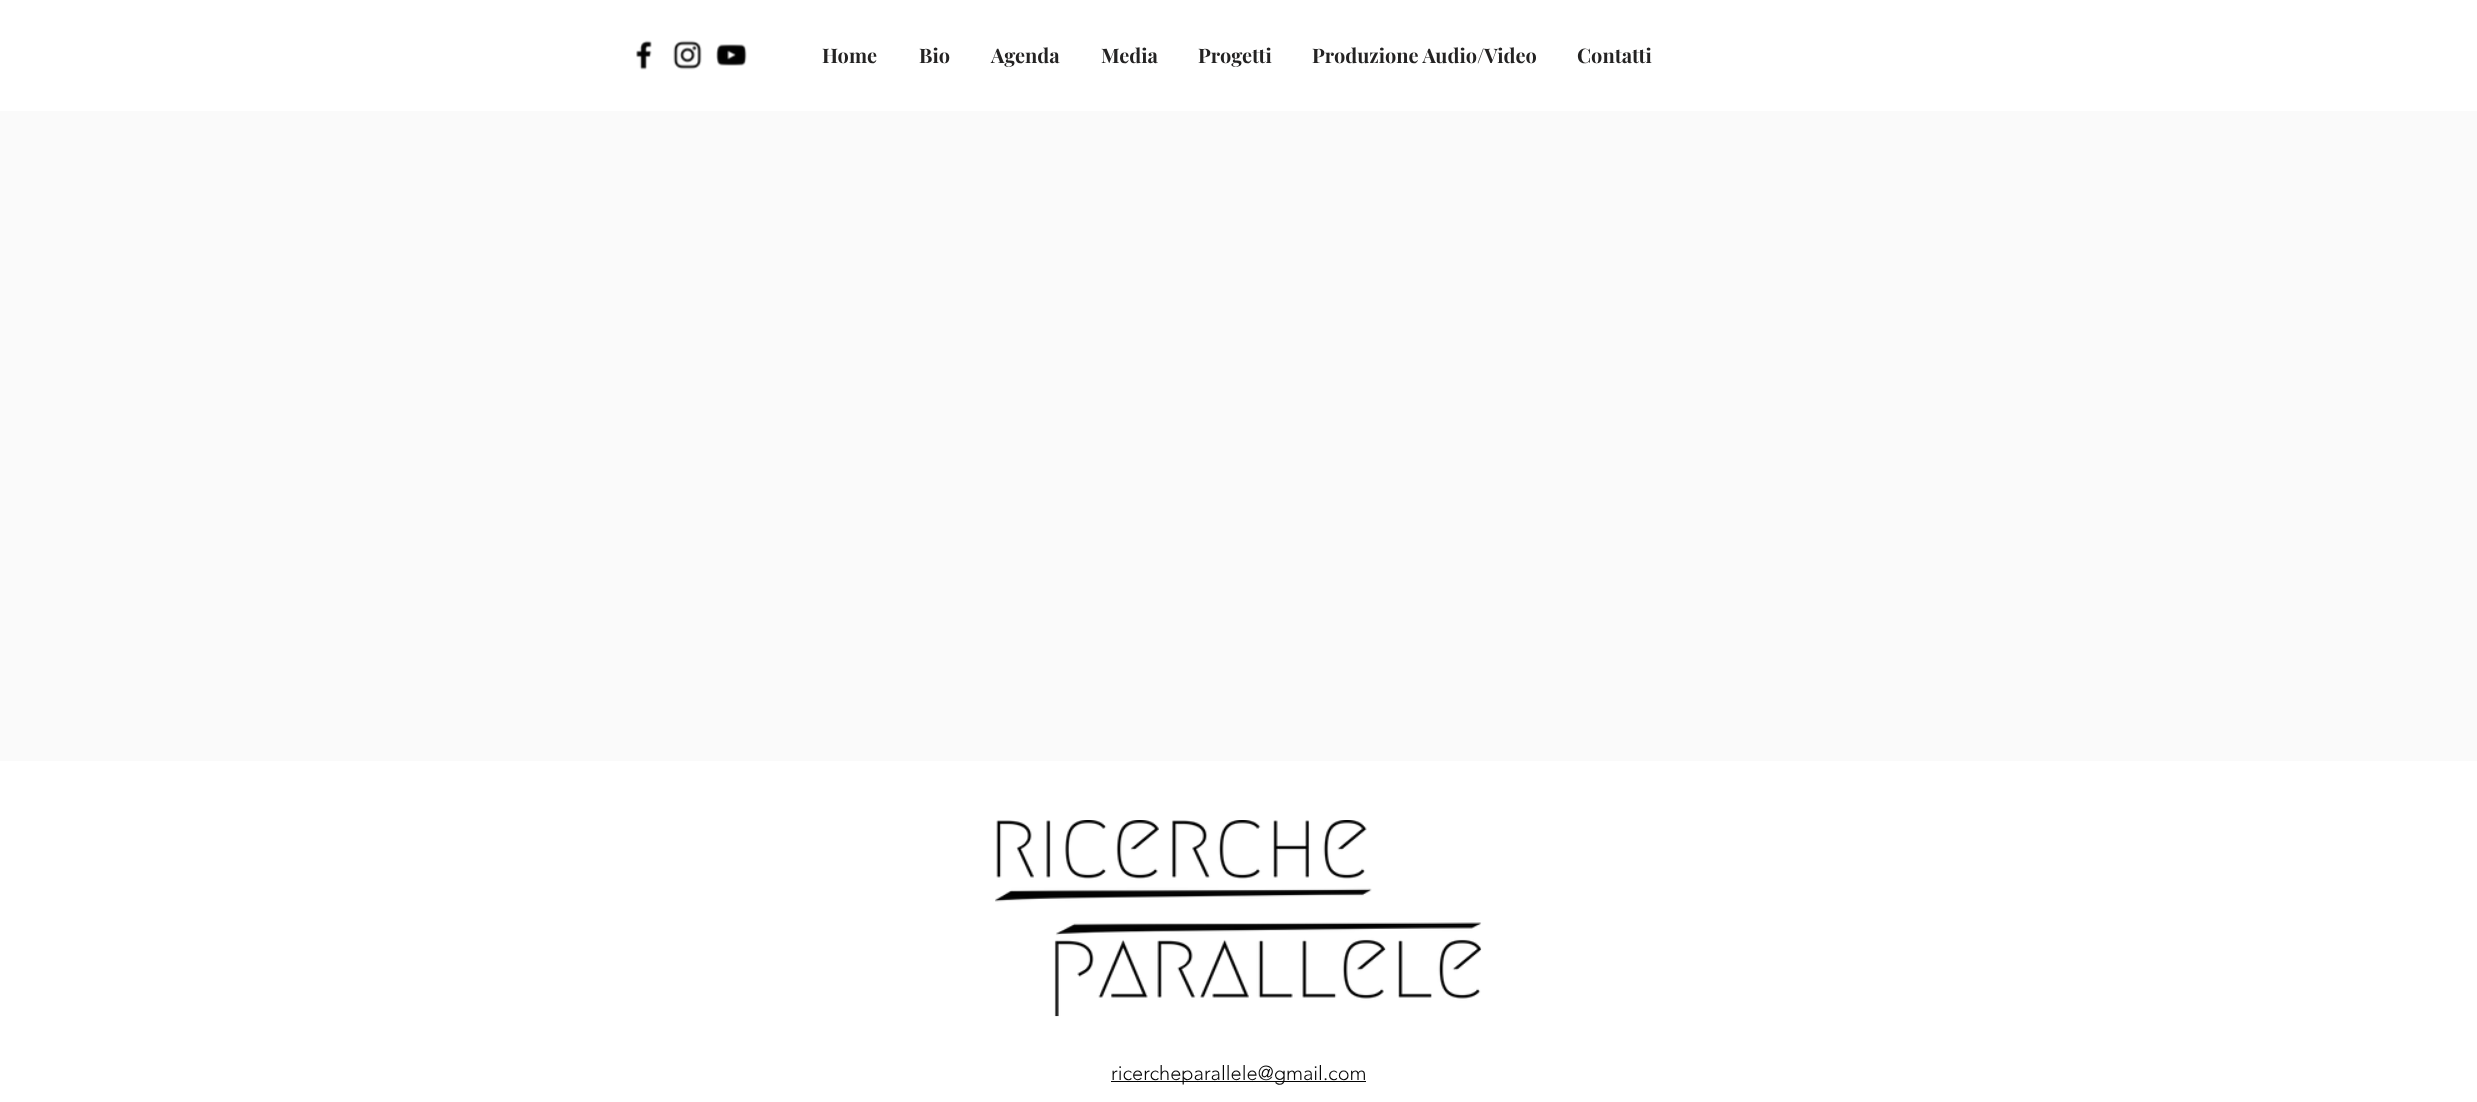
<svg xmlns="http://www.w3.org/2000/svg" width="2477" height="1102">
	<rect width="100%" height="100%" fill="#FFFFFF" />
	<image x="636" y="40" width="16" height="30" href="assets/img1.png" />
	<image x="673" y="40" width="29" height="30" href="assets/img2.png" />
	<image x="716" y="44" width="31" height="22" href="assets/img3.png" />
	<g font-family="Playfair Display" font-size="20" font-weight="700" fill="#242323">
		<text x="822" y="63">Home</text>
		<text x="919" y="63">Bio</text>
		<text x="991" y="63">Agenda</text>
		<text x="1101" y="63">Media</text>
		<text x="1198" y="63">Progetti</text>
		<text x="1312" y="63">Produzione Audio/Video</text>
		<text x="1577" y="63">Contatti</text>
	</g>
	<rect x="0" y="111" width="2477" height="650" fill="#FAFAFA" />
	<image x="995" y="820" width="487" height="197" href="assets/img4.png" />
	<rect x="1111" y="1081" width="255" height="1" fill="#050505" />
	<text x="1111" y="1080" font-family="'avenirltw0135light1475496'" font-size="20" font-weight="300" fill="#050505">ricercheparallele@gmail.com</text>
</svg>
